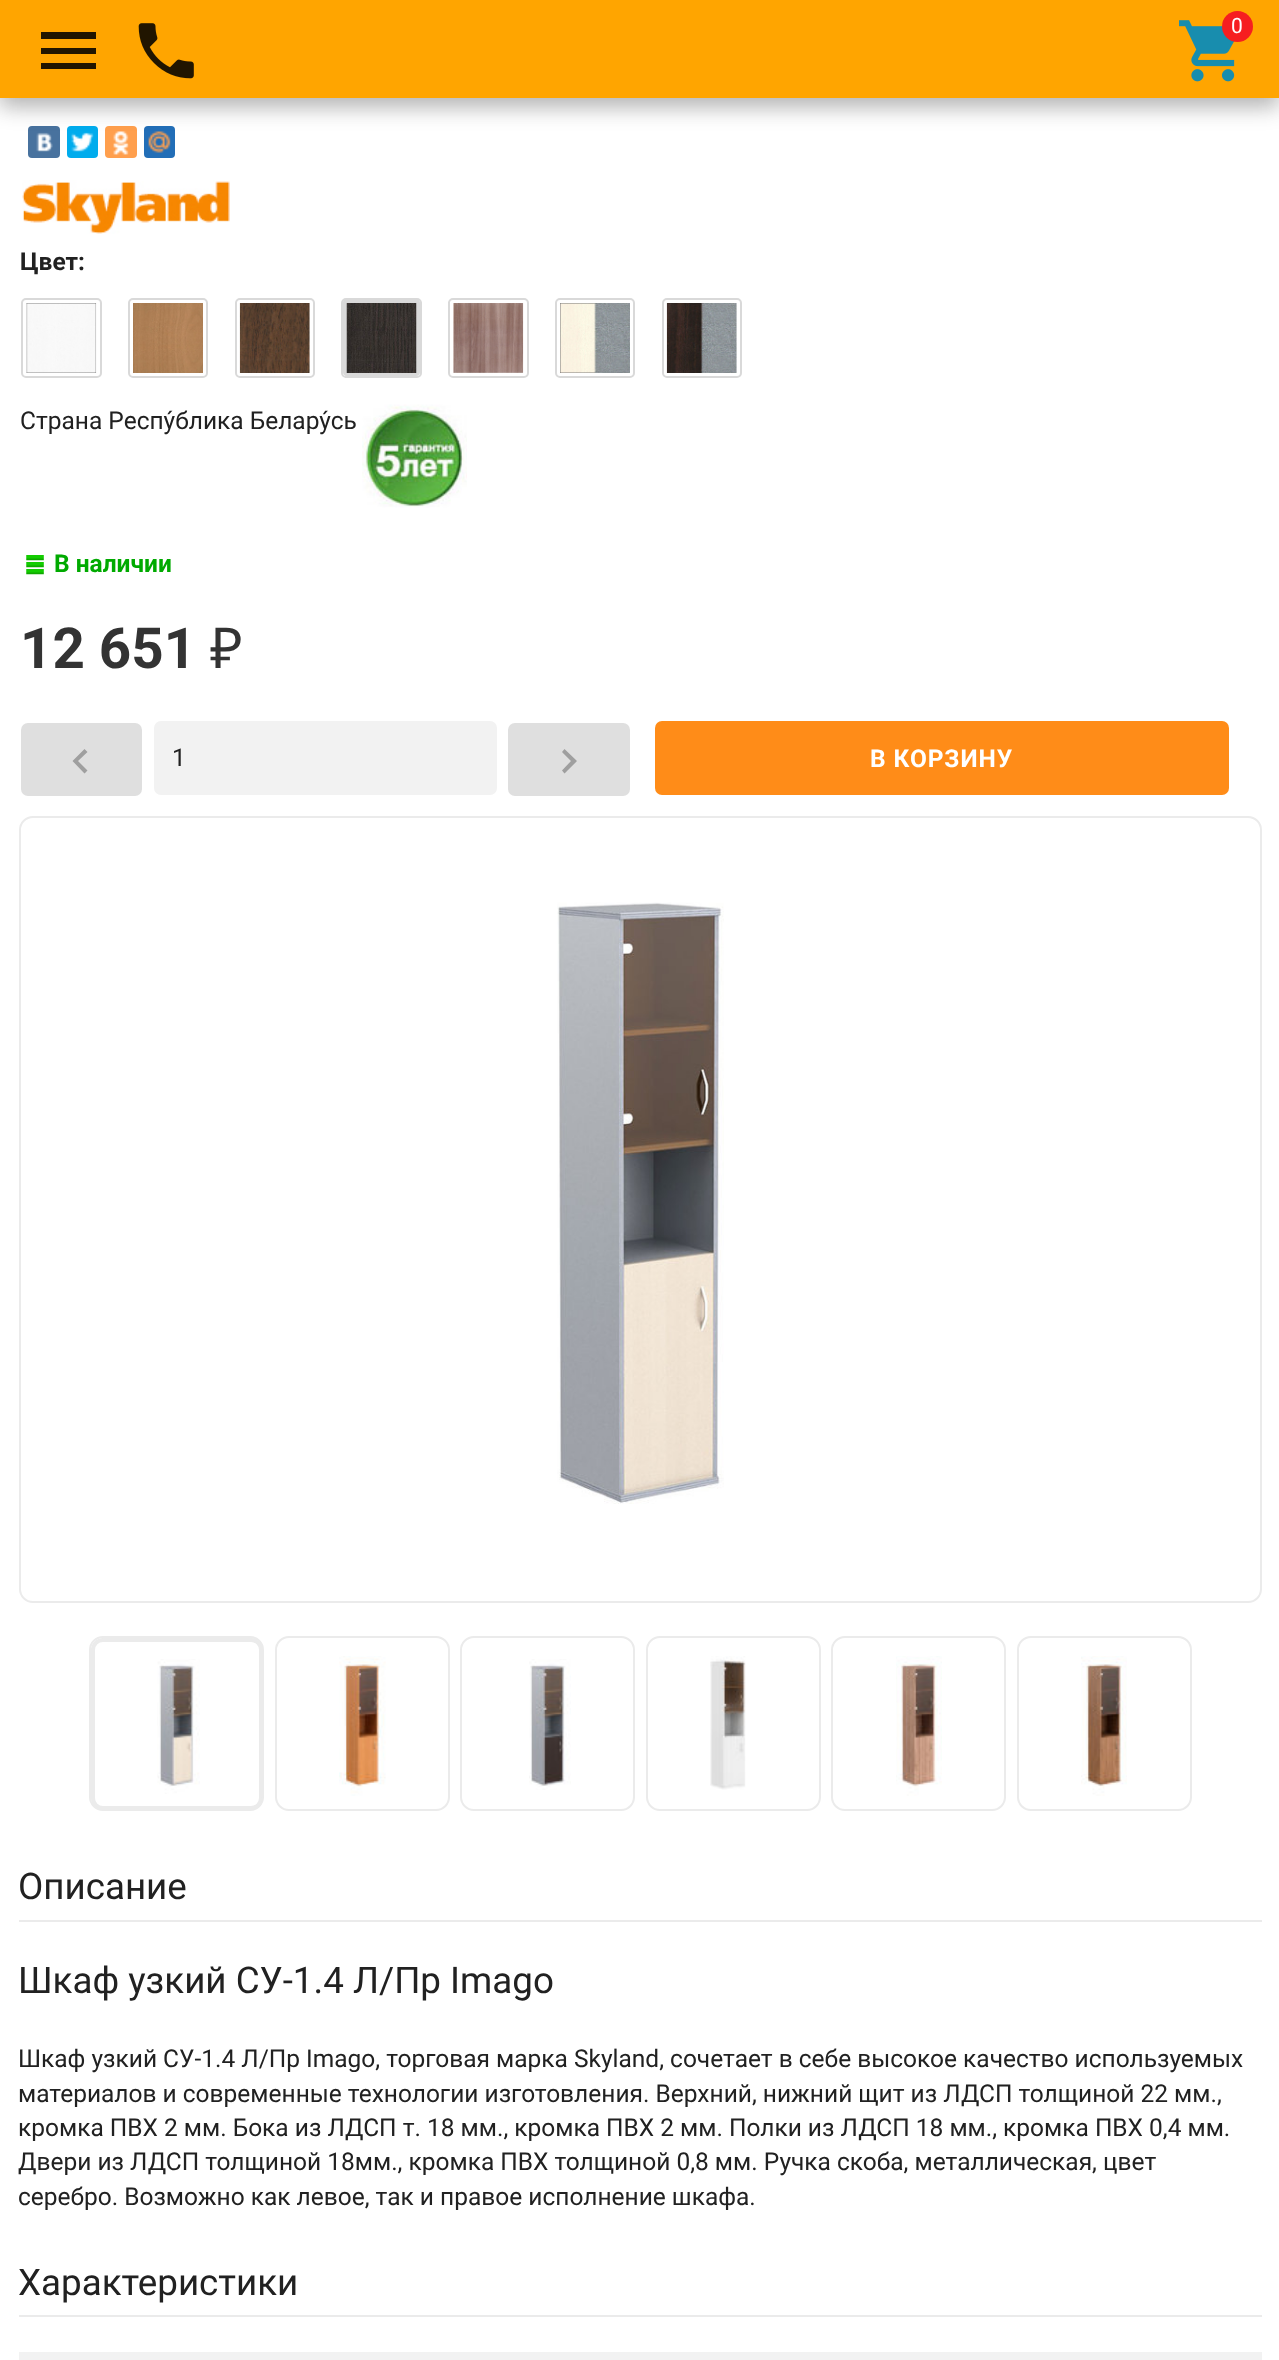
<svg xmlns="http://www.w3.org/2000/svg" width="1279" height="2360">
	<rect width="100%" height="100%" fill="#FFFFFF" />
	<rect x="28" y="126" width="32" height="32" rx="4" fill="#48729E" />
	<image x="36" y="132" width="17" height="20" href="assets/img3.png" />
	<rect x="67" y="126" width="31" height="32" rx="4" fill="#00ACED" />
	<image x="71" y="132" width="23" height="20" href="assets/img4.png" />
	<rect x="105" y="126" width="32" height="32" rx="4" fill="#FF9F4D" />
	<image x="113" y="131" width="16" height="24" href="assets/img5.png" />
	<rect x="144" y="126" width="31" height="32" rx="4" fill="#226EB7" />
	<image x="148" y="131" width="23" height="22" href="assets/img6.png" />
	<rect x="0" y="7" width="1279" height="98" fill="#000000" fill-opacity="0.15" filter="blur(13px)" />
	<rect x="0" y="9" width="1279" height="98" fill="#000000" fill-opacity="0.18" filter="blur(9.5px)" />
	<rect x="0" y="0" width="1279" height="98" fill="#FFA500" />
	<path d="M41 32H96V39H41ZM41 54V48H96V54ZM41 69V63H96V69Z" fill="#211500" />
	<image x="138" y="23" width="56" height="56" href="assets/img1.png" />
	<image x="1179" y="20" width="56" height="62" href="assets/img2.png" />
	<circle cx="1237.5" cy="26.5" r="15.5" fill="#F61E20" />
	<text x="1231" y="33" font-family="Roboto" font-size="21" fill="#FFFFFF">0</text>
	<image x="22" y="180" width="208" height="54" href="assets/img7.png" />
	<text x="20" y="270" font-family="Roboto" font-size="24.5" font-weight="700" fill="#212121">Цвет:</text>
	<rect x="22" y="299" width="79" height="78" rx="4" fill="none" stroke="#D9D9D9" stroke-width="2" />
	<image x="26" y="303" width="71" height="70" href="assets/img8.png" />
	<rect x="129" y="299" width="78" height="78" rx="4" fill="none" stroke="#D9D9D9" stroke-width="2" />
	<image x="133" y="303" width="70" height="70" href="assets/img9.png" />
	<rect x="236" y="299" width="78" height="78" rx="4" fill="none" stroke="#D9D9D9" stroke-width="2" />
	<image x="239" y="303" width="71" height="70" href="assets/img10.png" />
	<rect x="345" y="301" width="73" height="73" rx="2" fill="none" stroke="#D9D9D9" stroke-width="4" />
	<rect x="342" y="299" width="79" height="78" rx="4" fill="none" stroke="#D9D9D9" stroke-width="2" />
	<image x="346" y="303" width="71" height="70" href="assets/img11.png" />
	<rect x="449" y="299" width="79" height="78" rx="4" fill="none" stroke="#D9D9D9" stroke-width="2" />
	<image x="453" y="303" width="71" height="70" href="assets/img12.png" />
	<rect x="556" y="299" width="78" height="78" rx="4" fill="none" stroke="#D9D9D9" stroke-width="2" />
	<image x="560" y="303" width="70" height="70" href="assets/img13.png" />
	<rect x="663" y="299" width="78" height="78" rx="4" fill="none" stroke="#D9D9D9" stroke-width="2" />
	<image x="666" y="303" width="71" height="70" href="assets/img14.png" />
	<text x="20" y="429" font-family="Roboto" font-size="24.5" fill="#212121">Страна Респу́блика Белару́сь</text>
	<image x="362" y="404" width="105" height="104" href="assets/img15.png" />
	<image x="26" y="555" width="18" height="20" href="assets/img16.png" />
	<text x="54" y="572" font-family="Roboto" font-size="24.5" font-weight="700" fill="#00AA00">В наличии</text>
	<text x="20" y="668" font-family="Roboto" font-size="56.5" font-weight="700" fill="#333333">12 651</text>
	<text x="210" y="668" font-family="Noto Sans" font-size="56.5" fill="#333333">₽</text>
	<rect x="21" y="723" width="121" height="73" rx="7" fill="#DFDFDF" />
	<path d="M87.5 752L78 761L87.5 770.5L84.5 773.5L72.5 761L84.5 749Z" fill="#9F9F9F" />
	<rect x="154" y="721" width="343" height="74" rx="7" fill="#F2F2F2" />
	<text x="172" y="766" font-family="Roboto" font-size="24.5" fill="#212121">1</text>
	<rect x="508" y="723" width="122" height="73" rx="7" fill="#DFDFDF" />
	<path d="M564.5 749L577 761L564.5 773.5L562 770.5L571 761L562 752Z" fill="#9F9F9F" />
	<rect x="655" y="721" width="574" height="74" rx="7" fill="#FF8C18" />
	<text x="870" y="767" font-family="Roboto" font-size="24.5" font-weight="700" letter-spacing="0.9" fill="#FFFFFF">В КОРЗИНУ</text>
	<rect x="20" y="817" width="1241" height="785" rx="13" fill="none" stroke="#EBEBEB" stroke-width="2" />
	<image x="557" y="902" width="167" height="602" href="assets/img17.png" />
	<rect x="93" y="1640" width="168" height="168" rx="10" fill="none" stroke="#EBEBEB" stroke-width="4" />
	<rect x="90" y="1637" width="173" height="173" rx="13" fill="none" stroke="#EBEBEB" stroke-width="2" />
	<image x="157" y="1659" width="43" height="135" href="assets/img18.png" />
	<rect x="276" y="1637" width="173" height="173" rx="13" fill="none" stroke="#EBEBEB" stroke-width="2" />
	<image x="339" y="1656" width="47" height="140" href="assets/img19.png" />
	<rect x="461" y="1637" width="173" height="173" rx="13" fill="none" stroke="#EBEBEB" stroke-width="2" />
	<image x="529" y="1659" width="42" height="131" href="assets/img20.png" />
	<rect x="647" y="1637" width="173" height="173" rx="13" fill="none" stroke="#EBEBEB" stroke-width="2" />
	<image x="710" y="1656" width="36" height="134" href="assets/img21.png" />
	<rect x="832" y="1637" width="173" height="173" rx="13" fill="none" stroke="#EBEBEB" stroke-width="2" />
	<image x="896" y="1656" width="46" height="140" href="assets/img22.png" />
	<rect x="1018" y="1637" width="173" height="173" rx="13" fill="none" stroke="#EBEBEB" stroke-width="2" />
	<image x="1081" y="1656" width="46" height="140" href="assets/img23.png" />
	<rect x="19" y="1920" width="1243" height="2" fill="#EBEBEB" />
	<g font-family="Roboto" font-size="36.75" fill="#212121">
		<text x="18" y="1899">Описание</text>
		<text x="18" y="1993">Шкаф узкий СУ-1.4 Л/Пр Imago</text>
	</g>
	<g font-family="Roboto" font-size="24.5" fill="#212121">
		<text x="18" y="2067">Шкаф узкий СУ-1.4 Л/Пр Imago, торговая марка Skyland, сочетает в себе высокое качество используемых</text>
		<text x="18" y="2102">материалов и современные технологии изготовления. Верхний, нижний щит из ЛДСП толщиной 22 мм.,</text>
		<text x="18" y="2136">кромка ПВХ 2 мм. Бока из ЛДСП т. 18 мм., кромка ПВХ 2 мм. Полки из ЛДСП 18 мм., кромка ПВХ 0,4 мм.</text>
		<text x="18" y="2170">Двери из ЛДСП толщиной 18мм., кромка ПВХ толщиной 0,8 мм. Ручка скоба, металлическая, цвет</text>
		<text x="18" y="2205">серебро. Возможно как левое, так и правое исполнение шкафа.</text>
	</g>
	<rect x="19" y="2315" width="1243" height="2" fill="#EBEBEB" />
	<text x="18" y="2295" font-family="Roboto" font-size="36.75" fill="#212121">Характеристики</text>
	<rect x="19" y="2352" width="1243" height="8" fill="#F2F2F2" />
</svg>
